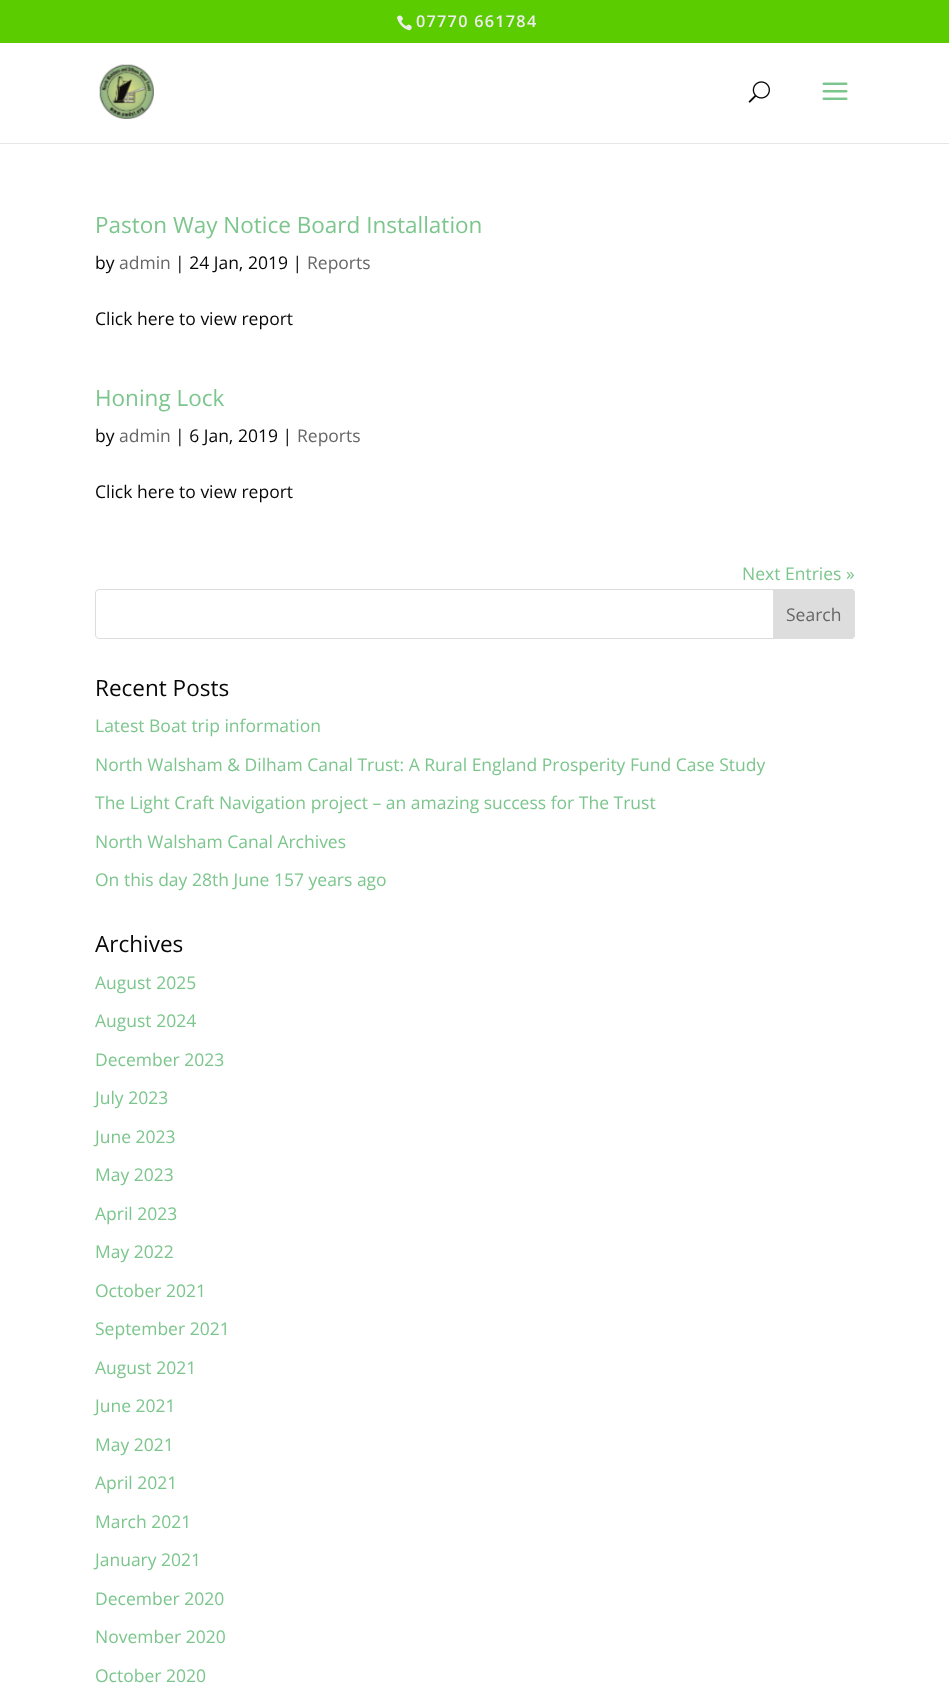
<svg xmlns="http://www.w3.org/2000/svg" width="949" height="1683">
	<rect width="100%" height="100%" fill="#FFFFFF" />
	<rect x="0" y="0" width="949" height="43" fill="#5BCC00" />
	<image x="396" y="15" width="16" height="16" href="assets/img1.png" />
	<text x="416" y="27" font-family="Open Sans" font-size="16.25" font-weight="600" letter-spacing="1.25" fill="#EDEDED">07770 661784</text>
	<rect x="0" y="143" width="949" height="1" fill="#E6E6E6" />
	<image x="99" y="64" width="55" height="55" href="assets/img2.png" />
	<image x="748" y="81" width="22" height="22" href="assets/img3.png" />
	<image x="822" y="82" width="26" height="18" href="assets/img4.png" />
	<text x="95" y="233" font-family="Open Sans" font-size="22.5" fill="#7CC68D">Paston Way Notice Board Installation</text>
	<text x="95" y="269" font-family="Open Sans" font-size="17.5" fill="#070707">by</text>
	<text x="119" y="269" font-family="Open Sans" font-size="17.5" fill="#666666">admin</text>
	<text x="175" y="269" font-family="Open Sans" font-size="17.5" fill="#070707">| 24 Jan, 2019 |</text>
	<text x="307" y="269" font-family="Open Sans" font-size="17.5" fill="#666666">Reports</text>
	<text x="95" y="325" font-family="Open Sans" font-size="17.5" fill="#070707">Click here to view report</text>
	<text x="95" y="406" font-family="Open Sans" font-size="22.5" fill="#7CC68D">Honing Lock</text>
	<text x="95" y="442" font-family="Open Sans" font-size="17.5" fill="#070707">by</text>
	<text x="119" y="442" font-family="Open Sans" font-size="17.5" fill="#666666">admin</text>
	<text x="175" y="442" font-family="Open Sans" font-size="17.5" fill="#070707">| 6 Jan, 2019 |</text>
	<text x="297" y="442" font-family="Open Sans" font-size="17.5" fill="#666666">Reports</text>
	<text x="95" y="498" font-family="Open Sans" font-size="17.5" fill="#070707">Click here to view report</text>
	<text x="742" y="580" font-family="Open Sans" font-size="17.5" fill="#7CC68D">Next Entries »</text>
	<rect x="95.5" y="589.5" width="759" height="49" rx="3.5" fill="none" stroke="#DDDDDD" />
	<path d="M773.5 589.5H851C853 589.5 854.5 591 854.5 593V635C854.5 637 853 638.5 851 638.5H773.5Z" fill="#DDDDDD" stroke="#DDDDDD" />
	<text x="786" y="621" font-family="Open Sans" font-size="17.5" fill="#666666">Search</text>
	<text x="95" y="696" font-family="Open Sans" font-size="22.5" fill="#070707">Recent Posts</text>
	<g font-family="Open Sans" font-size="17.5" fill="#7CC68D">
		<text x="95" y="732">Latest Boat trip information</text>
		<text x="95" y="771">North Walsham &amp; Dilham Canal Trust: A Rural England Prosperity Fund Case Study</text>
		<text x="95" y="809">The Light Craft Navigation project – an amazing success for The Trust</text>
		<text x="95" y="848">North Walsham Canal Archives</text>
		<text x="95" y="886">On this day 28th June 157 years ago</text>
	</g>
	<text x="95" y="952" font-family="Open Sans" font-size="22.5" fill="#070707">Archives</text>
	<g font-family="Open Sans" font-size="17.5" fill="#7CC68D">
		<text x="95" y="989">August 2025</text>
		<text x="95" y="1027">August 2024</text>
		<text x="95" y="1066">December 2023</text>
		<text x="95" y="1104">July 2023</text>
		<text x="95" y="1143">June 2023</text>
		<text x="95" y="1181">May 2023</text>
		<text x="95" y="1220">April 2023</text>
		<text x="95" y="1258">May 2022</text>
		<text x="95" y="1297">October 2021</text>
		<text x="95" y="1335">September 2021</text>
		<text x="95" y="1374">August 2021</text>
		<text x="95" y="1412">June 2021</text>
		<text x="95" y="1451">May 2021</text>
		<text x="95" y="1489">April 2021</text>
		<text x="95" y="1528">March 2021</text>
		<text x="95" y="1566">January 2021</text>
		<text x="95" y="1605">December 2020</text>
		<text x="95" y="1643">November 2020</text>
		<text x="95" y="1682">October 2020</text>
	</g>
</svg>
